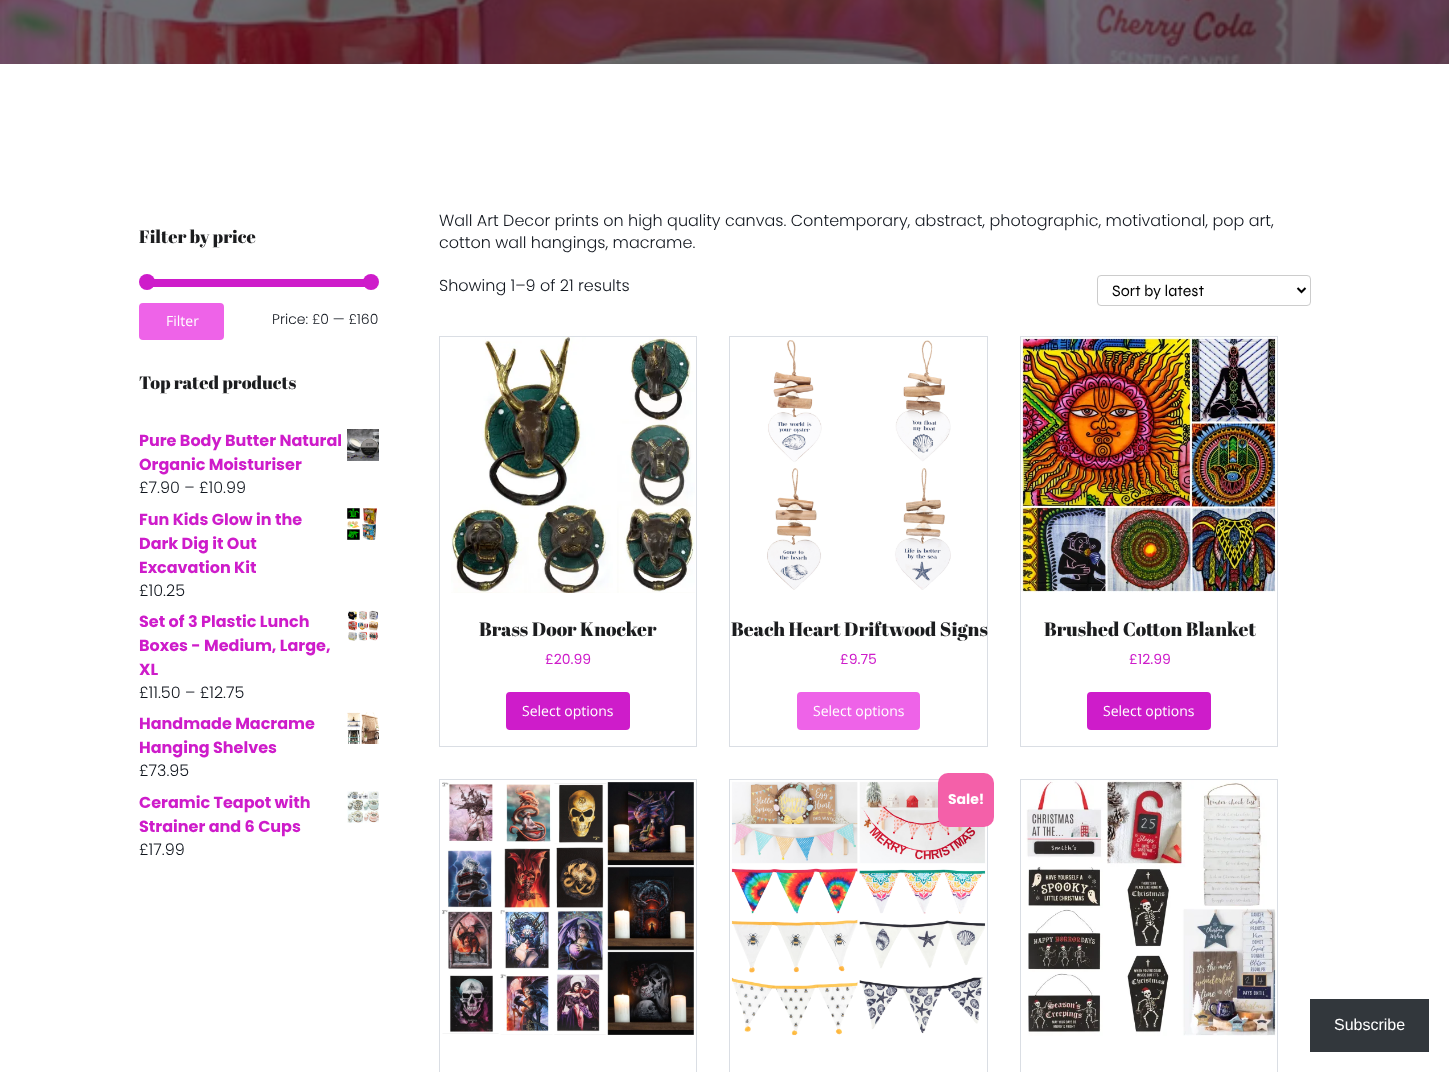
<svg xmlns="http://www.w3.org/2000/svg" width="1449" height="1072">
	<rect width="100%" height="100%" fill="#FFFFFF" />
	<image x="0" y="0" width="1449" height="64" href="assets/img1.png" />
	<text x="139" y="243" font-family="Abril Fatface" font-size="18" fill="#1C1D1F">Filter by price</text>
	<rect x="147" y="279" width="224" height="8" fill="#CE1CCA" />
	<circle cx="147" cy="282" r="8" fill="#CE1CCA" />
	<circle cx="371" cy="282" r="8" fill="#CE1CCA" />
	<rect x="140" y="304" width="83" height="35" rx="3" fill="#EE63E8" stroke="#EE63E8" stroke-width="2" />
	<text x="166" y="326" font-family="Open Sans" font-size="14" fill="#FFFFFF">Filter</text>
	<text x="272" y="324" font-family="Poppins" font-size="14" font-weight="300" fill="#11161E">Price: £0 — £160</text>
	<text x="139" y="389" font-family="Abril Fatface" font-size="18" fill="#1C1D1F">Top rated products</text>
	<text x="139" y="446" font-family="Poppins" font-size="16" font-weight="700" fill="#CE1CCA">Pure Body Butter Natural</text>
	<image x="347" y="429" width="32" height="32" href="assets/img2.png" />
	<text x="139" y="470" font-family="Poppins" font-size="16" font-weight="700" fill="#CE1CCA">Organic Moisturiser</text>
	<text x="139" y="493" font-family="Poppins" font-size="16" font-weight="300" fill="#11161E">£7.90 – £10.99</text>
	<text x="139" y="525" font-family="Poppins" font-size="16" font-weight="700" fill="#CE1CCA">Fun Kids Glow in the</text>
	<image x="347" y="508" width="30" height="32" href="assets/img3.png" />
	<g font-family="Poppins" font-size="16" font-weight="700" fill="#CE1CCA">
		<text x="139" y="549">Dark Dig it Out</text>
		<text x="139" y="573">Excavation Kit</text>
	</g>
	<text x="139" y="596" font-family="Poppins" font-size="16" font-weight="300" fill="#11161E">£10.25</text>
	<text x="139" y="627" font-family="Poppins" font-size="16" font-weight="700" fill="#CE1CCA">Set of 3 Plastic Lunch</text>
	<image x="348" y="610" width="31" height="31" href="assets/img4.png" />
	<g font-family="Poppins" font-size="16" font-weight="700" fill="#CE1CCA">
		<text x="139" y="651">Boxes - Medium, Large,</text>
		<text x="139" y="675">XL</text>
	</g>
	<text x="139" y="698" font-family="Poppins" font-size="16" font-weight="300" fill="#11161E">£11.50 – £12.75</text>
	<text x="139" y="729" font-family="Poppins" font-size="16" font-weight="700" fill="#CE1CCA">Handmade Macrame</text>
	<image x="347" y="712" width="32" height="32" href="assets/img5.png" />
	<text x="139" y="753" font-family="Poppins" font-size="16" font-weight="700" fill="#CE1CCA">Hanging Shelves</text>
	<text x="139" y="776" font-family="Poppins" font-size="16" font-weight="300" fill="#11161E">£73.95</text>
	<text x="139" y="808" font-family="Poppins" font-size="16" font-weight="700" fill="#CE1CCA">Ceramic Teapot with</text>
	<image x="347" y="791" width="32" height="32" href="assets/img6.png" />
	<text x="139" y="832" font-family="Poppins" font-size="16" font-weight="700" fill="#CE1CCA">Strainer and 6 Cups</text>
	<g font-family="Poppins" font-size="16" font-weight="300" fill="#11161E">
		<text x="139" y="855">£17.99</text>
		<text x="439" y="226">Wall Art Decor prints on high quality canvas. Contemporary, abstract, photographic, motivational, pop art,</text>
		<text x="439" y="248">cotton wall hangings, macrame.</text>
		<text x="439" y="291">Showing 1–9 of 21 results</text>
	</g>
	<rect x="1097.5" y="275.5" width="213" height="30" rx="3.5" fill="none" stroke="#CCCCCC" />
	<path d="M1297.5 288L1301.5 292L1305.5 288" fill="none" stroke="#000000" stroke-width="2" />
	<text x="1112" y="296" font-family="Syne" font-size="16" fill="#000000">Sort by latest</text>
	<rect x="439.5" y="336.5" width="257" height="410" fill="none" stroke="#DADEE4" />
	<image x="451" y="337" width="244" height="256" href="assets/img7.png" />
	<text x="479" y="636" font-family="Abril Fatface" font-size="19.25" fill="#1C1D1F">Brass Door Knocker</text>
	<text x="545" y="664" font-family="Poppins" font-size="14" fill="#CE1CCA">£20.99</text>
	<rect x="507" y="693" width="122" height="36" rx="3" fill="#CE1CCA" stroke="#CE1CCA" stroke-width="2" />
	<text x="522" y="716" font-family="Open Sans" font-size="14" fill="#FFFFFF">Select options</text>
	<rect x="729.5" y="336.5" width="258" height="410" fill="none" stroke="#DADEE4" />
	<image x="767" y="340" width="184" height="250" href="assets/img8.png" />
	<text x="731" y="636" font-family="Abril Fatface" font-size="19.25" fill="#1C1D1F">Beach Heart Driftwood Signs</text>
	<text x="840" y="664" font-family="Poppins" font-size="14" fill="#CE1CCA">£9.75</text>
	<rect x="798" y="693" width="121" height="36" rx="3" fill="#EE63E8" stroke="#EE63E8" stroke-width="2" />
	<text x="813" y="716" font-family="Open Sans" font-size="14" fill="#FFFFFF">Select options</text>
	<rect x="1020.5" y="336.5" width="257" height="410" fill="none" stroke="#DADEE4" />
	<image x="1021" y="337" width="256" height="256" href="assets/img9.png" />
	<text x="1044" y="636" font-family="Abril Fatface" font-size="19.25" fill="#1C1D1F">Brushed Cotton Blanket</text>
	<text x="1129" y="664" font-family="Poppins" font-size="14" fill="#CE1CCA">£12.99</text>
	<rect x="1088" y="693" width="122" height="36" rx="3" fill="#CE1CCA" stroke="#CE1CCA" stroke-width="2" />
	<text x="1103" y="716" font-family="Open Sans" font-size="14" fill="#FFFFFF">Select options</text>
	<rect x="439.5" y="779.5" width="257" height="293" fill="none" stroke="#DADEE4" />
	<image x="442" y="782" width="252" height="253" href="assets/img10.png" />
	<rect x="729.5" y="779.5" width="258" height="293" fill="none" stroke="#DADEE4" />
	<image x="731" y="781" width="255" height="255" href="assets/img11.png" />
	<rect x="938" y="773" width="56" height="54" rx="10" fill="#F460A9" />
	<text x="948" y="804" font-family="Poppins" font-size="14" font-weight="700" fill="#FFFFFF">Sale!</text>
	<rect x="1020.5" y="779.5" width="257" height="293" fill="none" stroke="#DADEE4" />
	<image x="1026" y="780" width="250" height="256" href="assets/img12.png" />
	<rect x="1310" y="999" width="119" height="53" fill="#32373C" />
	<text x="1334" y="1030" font-family="Liberation Sans" font-size="16" fill="#FFFFFF">Subscribe</text>
</svg>
